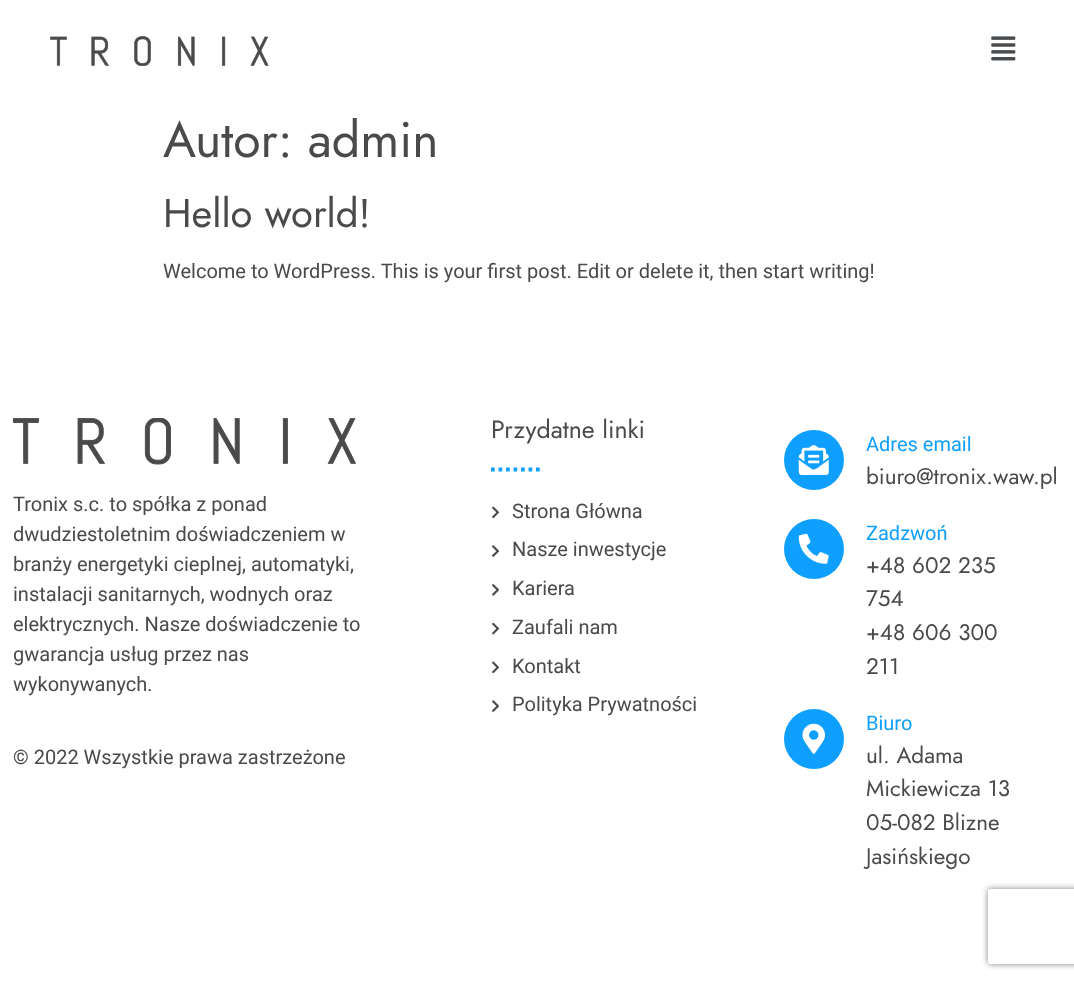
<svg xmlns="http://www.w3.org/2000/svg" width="1074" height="981">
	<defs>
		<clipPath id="clip1"><path d="M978 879H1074V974H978ZM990.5 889H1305.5C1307 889 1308 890 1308 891.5V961.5C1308 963 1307 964 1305.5 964H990.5C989 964 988 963 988 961.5V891.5C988 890 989 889 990.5 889Z" clip-rule="evenodd" /></clipPath>
	</defs>
	<rect width="100%" height="100%" fill="#FFFFFF" />
	<image x="50" y="36" width="219" height="30" href="assets/img1.png" />
	<image x="991" y="36" width="25" height="25" href="assets/img2.png" />
	<text x="163" y="157" font-family="Jost" font-size="50" fill="#4A4A4A">Autor: admin</text>
	<text x="163" y="227" font-family="Jost" font-size="40" fill="#4A4A4A">Hello world!</text>
	<text x="163" y="278" font-family="Roboto" font-size="20" fill="#4A4A4A">Welcome to WordPress. This is your first post. Edit or delete it, then start writing!</text>
	<image x="13" y="418" width="343" height="47" href="assets/img3.png" />
	<g font-family="Roboto" font-size="20" fill="#4A4A4A">
		<text x="13" y="511">Tronix s.c. to spółka z ponad</text>
		<text x="13" y="541">dwudziestoletnim doświadczeniem w</text>
		<text x="13" y="571">branży energetyki cieplnej, automatyki,</text>
		<text x="13" y="601">instalacji sanitarnych, wodnych oraz</text>
		<text x="13" y="631">elektrycznych. Nasze doświadczenie to</text>
		<text x="13" y="661">gwarancja usług przez nas</text>
		<text x="13" y="691">wykonywanych.</text>
		<text x="13" y="764">© 2022 Wszystkie prawa zastrzeżone</text>
	</g>
	<text x="491" y="438" font-family="Jost" font-size="25" fill="#4A4A4A">Przydatne linki</text>
	<path d="M491 469.5H541" fill="none" stroke="#0F9FFF" stroke-width="3.8" stroke-dasharray="3.75 3.75" />
	<image x="492" y="506" width="8" height="13" href="assets/img4.png" />
	<text x="512" y="518" font-family="Roboto" font-size="20" fill="#4A4A4A">Strona Główna</text>
	<image x="492" y="545" width="8" height="12" href="assets/img5.png" />
	<text x="512" y="556" font-family="Roboto" font-size="20" fill="#4A4A4A">Nasze inwestycje</text>
	<image x="492" y="584" width="8" height="12" href="assets/img6.png" />
	<text x="512" y="595" font-family="Roboto" font-size="20" fill="#4A4A4A">Kariera</text>
	<image x="492" y="622" width="8" height="13" href="assets/img7.png" />
	<text x="512" y="634" font-family="Roboto" font-size="20" fill="#4A4A4A">Zaufali nam</text>
	<image x="492" y="661" width="8" height="13" href="assets/img4.png" />
	<text x="512" y="673" font-family="Roboto" font-size="20" fill="#4A4A4A">Kontakt</text>
	<image x="492" y="700" width="8" height="12" href="assets/img5.png" />
	<text x="512" y="711" font-family="Roboto" font-size="20" fill="#4A4A4A">Polityka Prywatności</text>
	<circle cx="814" cy="460" r="30" fill="#0F9FFF" />
	<image x="798" y="445" width="31" height="30" href="assets/img8.png" />
	<text x="866" y="451" font-family="Roboto" font-size="20" fill="#0F9FFF">Adres email</text>
	<text x="866" y="484" font-family="Jost" font-size="22.5" fill="#4A4A4A">biuro@tronix.waw.pl</text>
	<circle cx="814" cy="549" r="30" fill="#0F9FFF" />
	<image x="798" y="533" width="31" height="31" href="assets/img9.png" />
	<text x="866" y="540" font-family="Roboto" font-size="20" fill="#0F9FFF">Zadzwoń</text>
	<g font-family="Jost" font-size="22.5" fill="#4A4A4A">
		<text x="866" y="573">+48 602 235</text>
		<text x="866" y="606">754</text>
		<text x="866" y="640">+48 606 300</text>
		<text x="866" y="674">211</text>
	</g>
	<circle cx="814" cy="739" r="30" fill="#0F9FFF" />
	<image x="802" y="723" width="23" height="31" href="assets/img10.png" />
	<text x="866" y="730" font-family="Roboto" font-size="20" fill="#0F9FFF">Biuro</text>
	<g font-family="Jost" font-size="22.5" fill="#4A4A4A">
		<text x="866" y="763">ul. Adama</text>
		<text x="866" y="796">Mickiewicza 13</text>
		<text x="866" y="830">05-082 Blizne</text>
		<text x="866" y="864">Jasińskiego</text>
	</g>
	<g clip-path="url(#clip1)">
		<rect x="988" y="889" width="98" height="75" rx="2.5" fill="#808080" filter="blur(3px)" />
	</g>
</svg>
